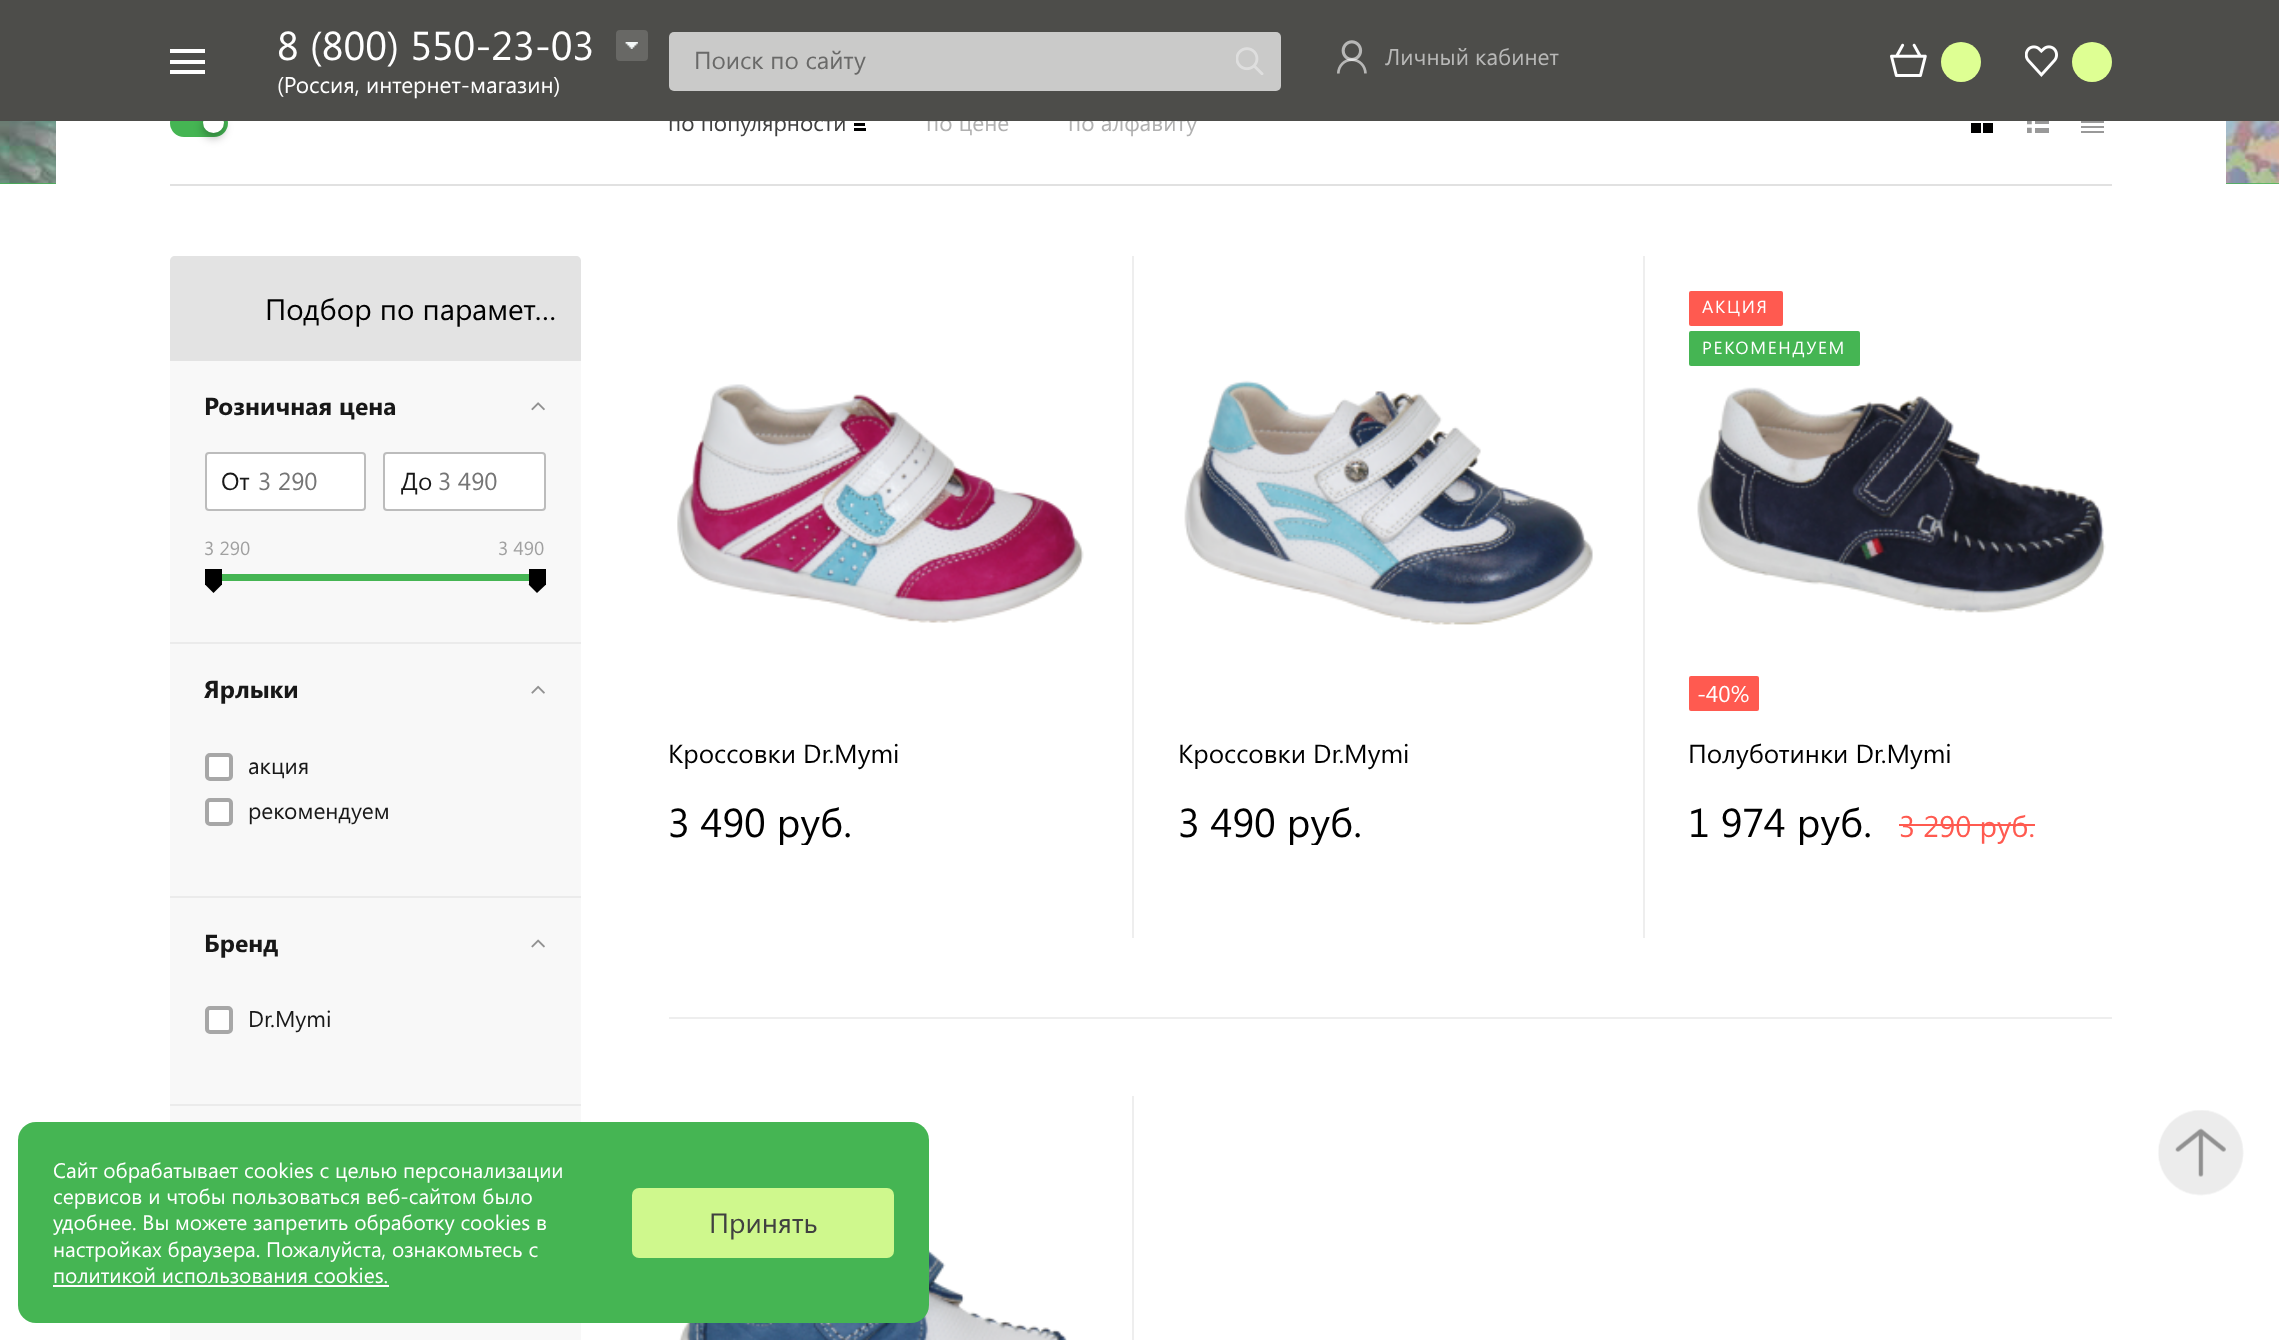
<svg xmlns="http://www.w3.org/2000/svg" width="2279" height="1340">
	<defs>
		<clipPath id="clip1"><rect x="669" y="796" width="420" height="49" /></clipPath>
		<clipPath id="clip2"><rect x="1178" y="796" width="422" height="49" /></clipPath>
		<clipPath id="clip3"><rect x="1689" y="796" width="422" height="49" /></clipPath>
	</defs>
	<rect width="100%" height="100%" fill="#FFFFFF" />
	<rect x="0" y="183" width="2279" height="1" fill="#45B553" />
	<image x="0" y="121" width="2279" height="63" href="assets/img14.png" />
	<rect x="56" y="121" width="2170" height="63" fill="#FFFFFF" />
	<rect x="170" y="109" width="58" height="28" rx="14" fill="#45B553" />
	<rect x="203" y="117" width="21" height="21" rx="10.5" fill="#000000" fill-opacity="0.3" filter="blur(5px)" />
	<circle cx="213.5" cy="122.5" r="10.5" fill="#FFFFFF" />
	<text x="668" y="131" font-family="Segoe UI" font-size="22.75" fill="#404040">по популярности</text>
	<g font-family="Segoe UI" font-size="22.75" fill="#B0B0B0">
		<text x="926" y="131">по цене</text>
		<text x="1068" y="131">по алфавиту</text>
	</g>
	<rect x="0" y="0" width="2279" height="121" fill="#4D4D4A" />
	<rect x="170" y="49" width="35" height="4" fill="#FFFFFF" />
	<rect x="170" y="60" width="35" height="4" fill="#FFFFFF" />
	<rect x="170" y="70" width="35" height="4" fill="#FFFFFF" />
	<text x="277" y="60" font-family="Segoe UI" font-size="40.25" fill="#FFFFFF">8 (800) 550-23-03</text>
	<rect x="616" y="30" width="32" height="31" rx="4" fill="#686865" />
	<image x="625" y="42" width="13" height="7" href="assets/img1.png" />
	<text x="277" y="93" font-family="Segoe UI" font-size="22.75" fill="#FFFFFF">(Россия, интернет-магазин)</text>
	<rect x="669" y="32" width="612" height="59" rx="5" fill="#CACAC9" />
	<text x="694" y="69" font-family="Segoe UI" font-size="24.5" fill="#696968">Поиск по сайту</text>
	<image x="1236" y="47" width="28" height="28" href="assets/img2.png" />
	<image x="1337" y="40" width="30" height="34" href="assets/img3.png" />
	<text x="1385" y="65" font-family="Segoe UI" font-size="22.75" fill="#B8B8B7">Личный кабинет</text>
	<image x="1890" y="43" width="37" height="34" href="assets/img4.png" />
	<circle cx="1961" cy="62" r="20" fill="#DEFF93" />
	<image x="2025" y="45" width="33" height="32" href="assets/img5.png" />
	<circle cx="2092" cy="62" r="20" fill="#DEFF93" />
	<rect x="170" y="184" width="1942" height="2" fill="#E1E1E1" />
	<rect x="854" y="123" width="11" height="3" fill="#000000" />
	<rect x="854" y="128" width="12" height="3" fill="#000000" />
	<rect x="1971" y="123" width="10" height="10" fill="#000000" />
	<rect x="1983" y="123" width="10" height="10" fill="#000000" />
	<image x="2027" y="121" width="22" height="12" href="assets/img6.png" />
	<rect x="2081" y="121" width="23" height="2" fill="#999999" />
	<rect x="2081" y="131" width="23" height="2" fill="#999999" />
	<rect x="2081" y="126" width="23" height="2" fill="#999999" />
	<path d="M175 256H576C579 256 581 258 581 261V361H170V261C170 258 172 256 175 256Z" fill="#E3E3E3" />
	<text x="265" y="320" font-family="Segoe UI" font-size="29.75" fill="#000000">Подбор по парамет…</text>
	<rect x="170" y="361" width="411" height="281" fill="#F8F8F8" />
	<rect x="170" y="642" width="411" height="2" fill="#EBEBEB" />
	<text x="204" y="415" font-family="Segoe UI" font-size="24.5" font-weight="700" fill="#181818">Розничная цена</text>
	<image x="531" y="402" width="14" height="9" href="assets/img7.png" />
	<rect x="206" y="453" width="159" height="57" rx="3" fill="#FFFFFF" stroke="#BCBCBC" stroke-width="2" />
	<text x="221" y="490" font-family="Segoe UI" font-size="24.5" fill="#181818">От</text>
	<text x="258" y="490" font-family="Segoe UI" font-size="24.5" fill="#757575">3 290</text>
	<rect x="384" y="453" width="161" height="57" rx="3" fill="#FFFFFF" stroke="#BCBCBC" stroke-width="2" />
	<text x="401" y="490" font-family="Segoe UI" font-size="24.5" fill="#181818">До</text>
	<text x="438" y="490" font-family="Segoe UI" font-size="24.5" fill="#757575">3 490</text>
	<g font-family="Segoe UI" font-size="19" fill="#A0A0A0">
		<text x="204" y="555">3 290</text>
		<text x="498" y="555">3 490</text>
	</g>
	<rect x="205" y="569" width="17" height="16" fill="#000000" />
	<path d="M205 584.5H222L213.5 593Z" fill="#000000" />
	<rect x="529" y="569" width="17" height="16" fill="#000000" />
	<path d="M528.5 584.5H546L537 593Z" fill="#000000" />
	<rect x="222" y="574" width="307" height="7" fill="#45B553" />
	<rect x="170" y="644" width="411" height="252" fill="#F8F8F8" />
	<rect x="170" y="896" width="411" height="2" fill="#EBEBEB" />
	<text x="204" y="698" font-family="Segoe UI" font-size="24.5" font-weight="700" fill="#181818">Ярлыки</text>
	<image x="531" y="685" width="14" height="9" href="assets/img8.png" />
	<rect x="207" y="755" width="24" height="24" rx="3" fill="#FFFFFF" stroke="#A7A7A7" stroke-width="4" />
	<text x="248" y="774" font-family="Segoe UI" font-size="22.75" fill="#181818">акция</text>
	<rect x="207" y="800" width="24" height="24" rx="3" fill="#FFFFFF" stroke="#A7A7A7" stroke-width="4" />
	<text x="248" y="819" font-family="Segoe UI" font-size="22.75" fill="#181818">рекомендуем</text>
	<rect x="170" y="898" width="411" height="206" fill="#F8F8F8" />
	<rect x="170" y="1104" width="411" height="2" fill="#EBEBEB" />
	<text x="204" y="952" font-family="Segoe UI" font-size="24.5" font-weight="700" fill="#181818">Бренд</text>
	<image x="531" y="939" width="14" height="9" href="assets/img9.png" />
	<rect x="207" y="1008" width="24" height="24" rx="3" fill="#FFFFFF" stroke="#A7A7A7" stroke-width="4" />
	<text x="248" y="1027" font-family="Segoe UI" font-size="22.75" fill="#181818">Dr.Mymi</text>
	<rect x="170" y="1106" width="411" height="234" fill="#F8F8F8" />
	<rect x="1132" y="256" width="2" height="682" fill="#EEEEEE" />
	<image x="677" y="384" width="407" height="239" href="assets/img10.png" />
	<text x="668" y="763" font-family="Segoe UI" font-size="26.25" fill="#000000">Кроссовки Dr.Mymi</text>
	<g clip-path="url(#clip1)">
		<text x="668" y="837" font-family="Segoe UI" font-size="40.25" fill="#000000">3 490 руб.</text>
	</g>
	<rect x="1643" y="256" width="2" height="682" fill="#EEEEEE" />
	<image x="1184" y="380" width="409" height="245" href="assets/img11.png" />
	<text x="1178" y="763" font-family="Segoe UI" font-size="26.25" fill="#000000">Кроссовки Dr.Mymi</text>
	<g clip-path="url(#clip2)">
		<text x="1178" y="837" font-family="Segoe UI" font-size="40.25" fill="#000000">3 490 руб.</text>
	</g>
	<rect x="1689" y="291" width="94" height="35" rx="2" fill="#FF5A50" />
	<text x="1702" y="313" font-family="Segoe UI" font-size="17.5" letter-spacing="1.75" fill="#FFFFFF">АКЦИЯ</text>
	<rect x="1689" y="331" width="171" height="35" rx="2" fill="#45B553" />
	<text x="1702" y="354" font-family="Segoe UI" font-size="17.5" letter-spacing="1.75" fill="#FFFFFF">РЕКОМЕНДУЕМ</text>
	<image x="1697" y="387" width="409" height="226" href="assets/img12.png" />
	<rect x="1689" y="676" width="70" height="35" rx="2" fill="#FF5A50" />
	<text x="1697" y="702" font-family="Segoe UI" font-size="22.75" fill="#FFFFFF">-40%</text>
	<text x="1688" y="763" font-family="Segoe UI" font-size="26.25" fill="#000000">Полуботинки Dr.Mymi</text>
	<g clip-path="url(#clip3)">
		<text x="1688" y="837" font-family="Segoe UI" font-size="40.25" fill="#000000">1 974 руб.</text>
	</g>
	<text x="1899" y="837" font-family="Segoe UI" font-size="29.75" fill="#FF5A50">3 290 руб.</text>
	<rect x="1899" y="824" width="136" height="2" fill="#FF5A50" />
	<rect x="669" y="1017" width="1443" height="2" fill="#EEEEEE" />
	<rect x="1132" y="1096" width="2" height="244" fill="#EEEEEE" />
	<image x="679" y="1250" width="388" height="90" href="assets/img13.png" />
	<image x="2158" y="1110" width="86" height="86" href="assets/img15.png" />
	<rect x="18" y="1122" width="911" height="201" rx="18" fill="#45B553" />
	<g font-family="Segoe UI" font-size="21" fill="#FFFFFF">
		<text x="53" y="1178">Сайт обрабатывает cookies с целью персонализации</text>
		<text x="53" y="1204">сервисов и чтобы пользоваться веб-сайтом было</text>
		<text x="53" y="1230">удобнее. Вы можете запретить обработку сookies в</text>
		<text x="53" y="1257">настройках браузера. Пожалуйста, ознакомьтесь с</text>
		<text x="53" y="1283">политикой использования cookies.</text>
	</g>
	<rect x="53" y="1285" width="336" height="2" fill="#FFFFFF" />
	<rect x="632" y="1188" width="262" height="70" rx="7" fill="#CFF88D" />
	<text x="709" y="1233" font-family="Segoe UI" font-size="28" fill="#404040">Принять</text>
</svg>
